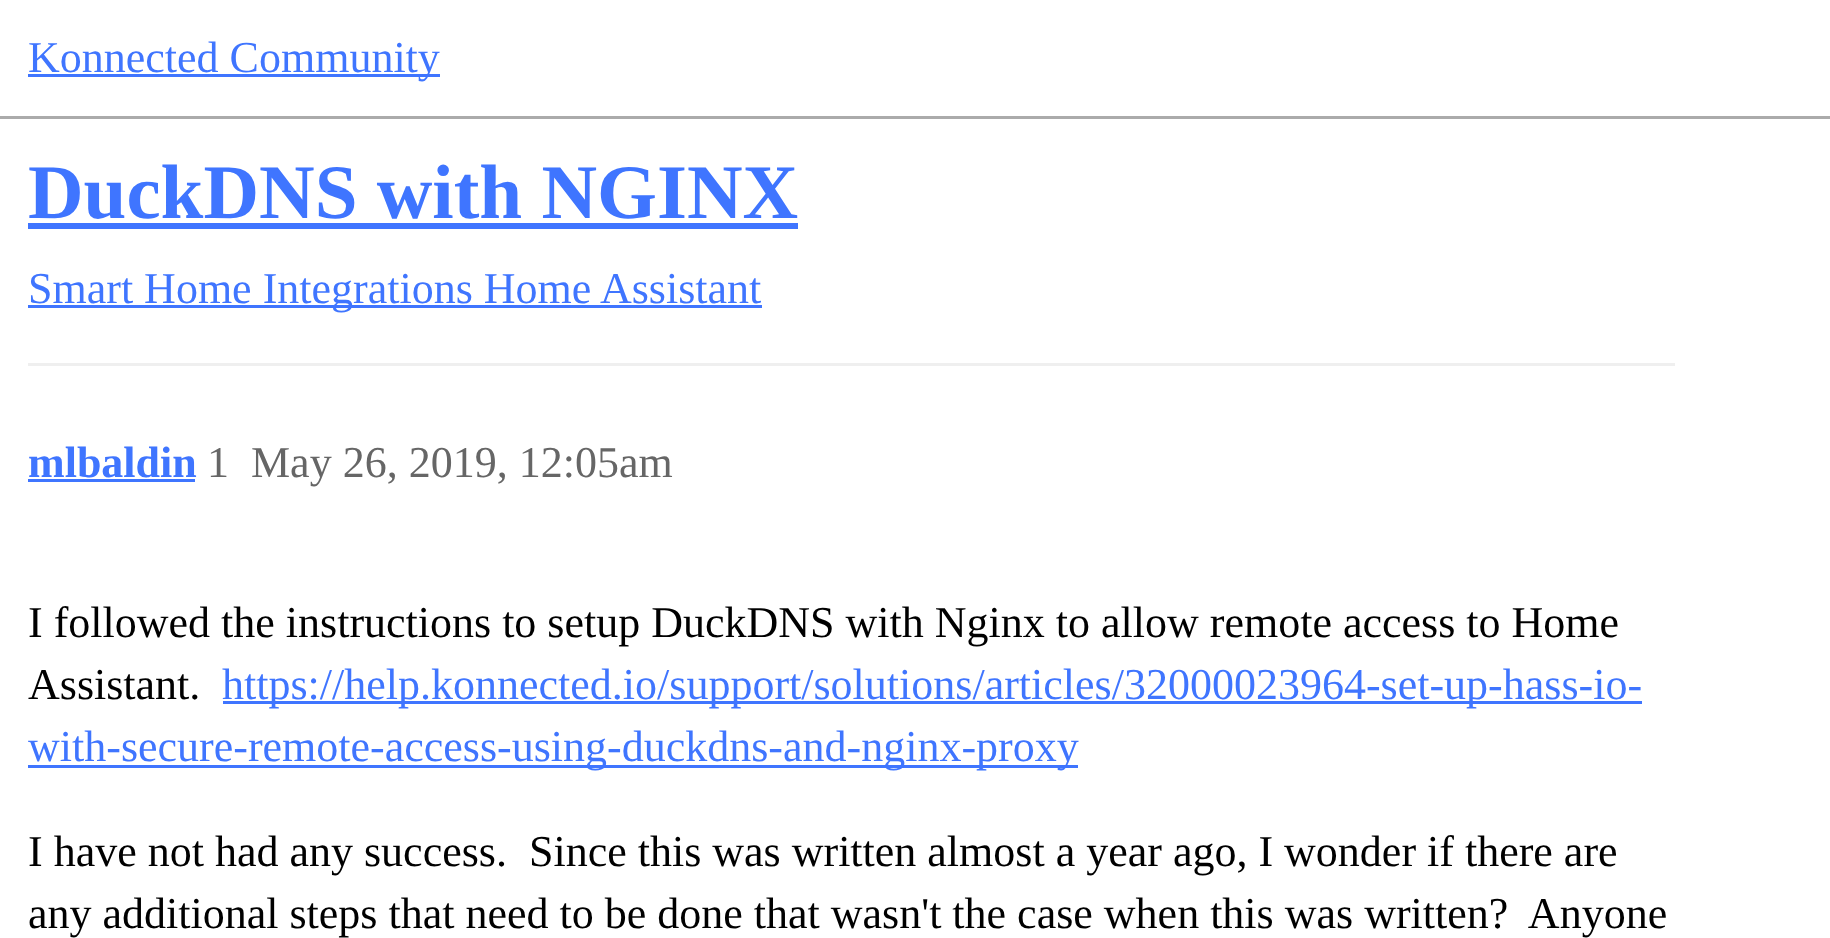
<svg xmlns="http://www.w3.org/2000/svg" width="1830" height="938">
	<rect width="100%" height="100%" fill="#FFFFFF" />
	<rect x="0" y="116" width="1830" height="3" fill="#ABABAB" />
	<rect x="28" y="74" width="412" height="3" fill="#3F75FF" />
	<text x="28" y="72" font-family="Liberation Serif" font-size="44" fill="#3F75FF">Konnected Community</text>
	<text x="28" y="218" font-family="Liberation Serif" font-size="77" font-weight="700" fill="#3F75FF">DuckDNS with NGINX</text>
	<rect x="28" y="223" width="770" height="6" fill="#3F75FF" />
	<rect x="28" y="305" width="734" height="3" fill="#3F75FF" />
	<text x="28" y="303" font-family="Liberation Serif" font-size="44" fill="#3F75FF">Smart Home Integrations Home Assistant</text>
	<rect x="28" y="363" width="1647" height="3" fill="#EFEFEF" />
	<text x="28" y="477" font-family="Liberation Serif" font-size="44" font-weight="700" fill="#3F75FF">mlbaldin</text>
	<rect x="28" y="479" width="167" height="3" fill="#3F75FF" />
	<g font-family="Liberation Serif" font-size="44" fill="#666666">
		<text x="207" y="477">1</text>
		<text x="251" y="477">May 26, 2019, 12:05am</text>
	</g>
	<g font-family="Liberation Serif" font-size="44" fill="#000000">
		<text x="28" y="637">I followed the instructions to setup DuckDNS with Nginx to allow remote access to Home</text>
		<text x="28" y="699">Assistant.</text>
	</g>
	<rect x="223" y="701" width="1419" height="3" fill="#3F75FF" />
	<text x="222" y="699" font-family="Liberation Serif" font-size="44" fill="#3F75FF">https://help.konnected.io/support/solutions/articles/32000023964-set-up-hass-io-</text>
	<rect x="28" y="765" width="1050" height="3" fill="#3F75FF" />
	<text x="28" y="761" font-family="Liberation Serif" font-size="44" fill="#3F75FF">with-secure-remote-access-using-duckdns-and-nginx-proxy</text>
	<g font-family="Liberation Serif" font-size="44" fill="#000000">
		<text x="28" y="866" xml:space="preserve">I have not had any success.  Since this was written almost a year ago, I wonder if there are</text>
		<text x="28" y="928" xml:space="preserve">any additional steps that need to be done that wasn't the case when this was written?  Anyone</text>
	</g>
</svg>
